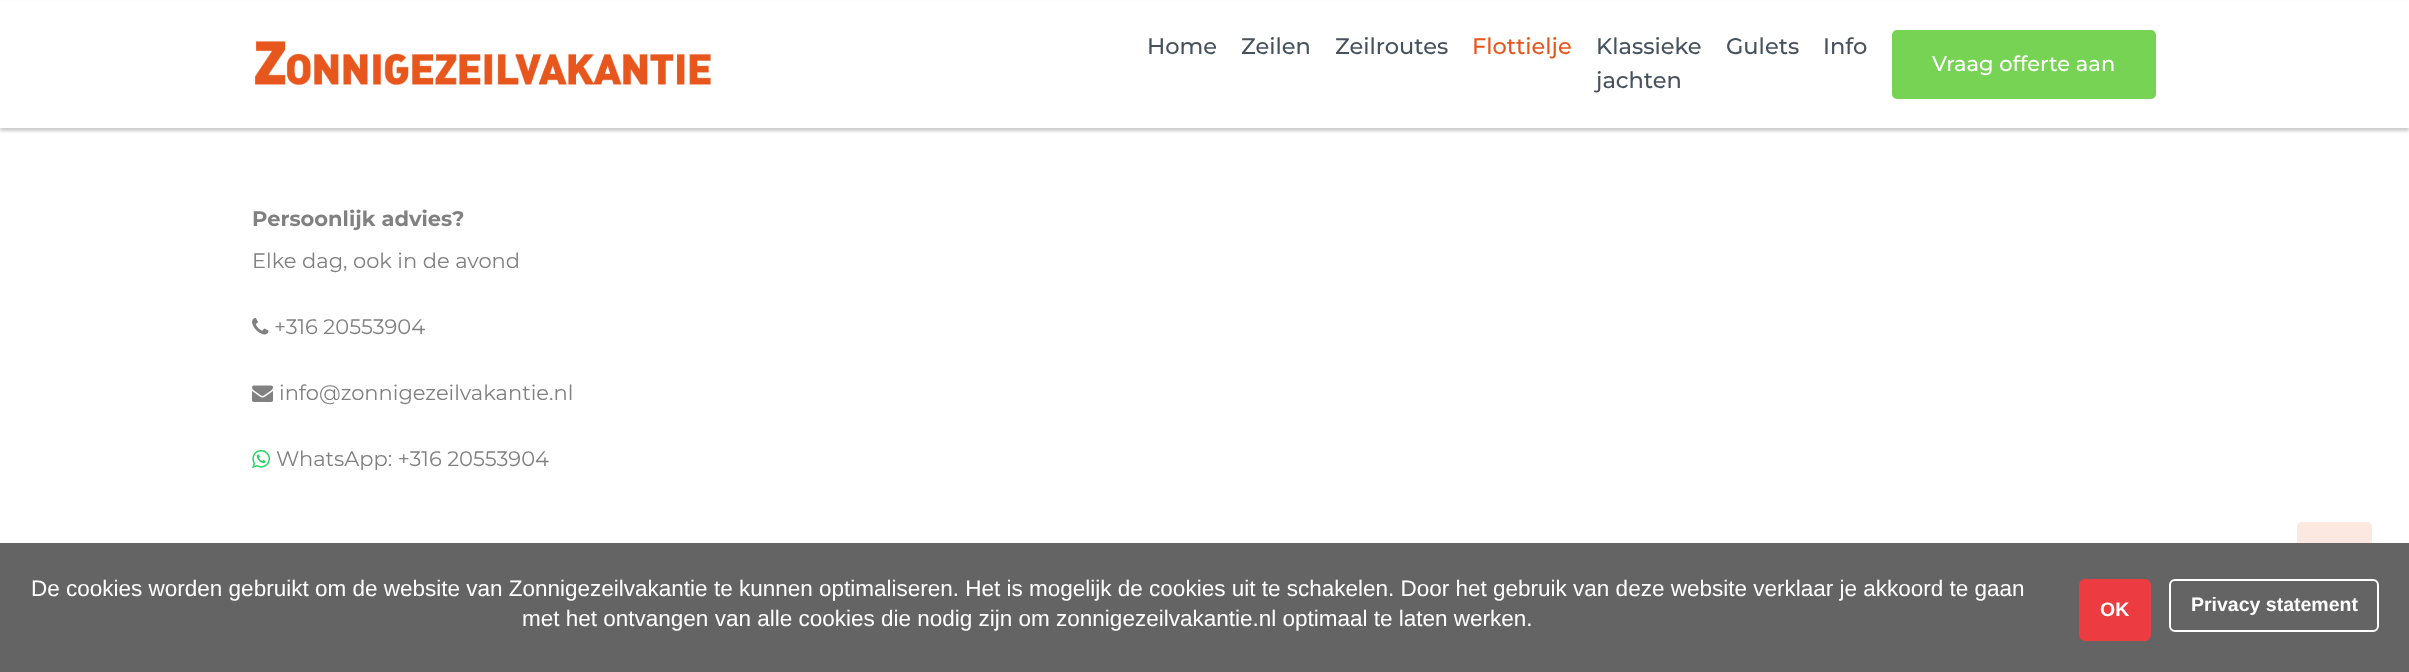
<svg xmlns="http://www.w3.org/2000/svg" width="2409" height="672">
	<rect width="100%" height="100%" fill="#FFFFFF" />
	<rect x="0" y="3" width="2409" height="128" fill="#000000" fill-opacity="0.2" filter="blur(1.5px)" />
	<rect x="0" y="1" width="2409" height="127" fill="#FFFFFF" />
	<image x="255" y="41" width="456" height="44" href="assets/img1.png" />
	<g font-family="Montserrat" font-size="22.5" font-weight="500" fill="#47525E">
		<text x="1147" y="54">Home</text>
		<text x="1241" y="54">Zeilen</text>
		<text x="1335" y="54">Zeilroutes</text>
	</g>
	<text x="1472" y="54" font-family="Montserrat" font-size="22.5" font-weight="500" fill="#E7571D">Flottielje</text>
	<g font-family="Montserrat" font-size="22.5" font-weight="500" fill="#47525E">
		<text x="1596" y="54">Klassieke</text>
		<text x="1596" y="88">jachten</text>
		<text x="1726" y="54">Gulets</text>
		<text x="1823" y="54">Info</text>
	</g>
	<rect x="1893.5" y="31.5" width="261" height="66" rx="3.5" fill="#77D353" stroke="#77D353" stroke-width="3" />
	<text x="1932" y="71" font-family="Montserrat" font-size="21" font-weight="500" fill="#FFFFFF">Vraag offerte aan</text>
	<text x="252" y="226" font-family="Montserrat" font-size="21" font-weight="700" fill="#818181">Persoonlijk advies?</text>
	<text x="252" y="268" font-family="Montserrat" font-size="21" fill="#818181">Elke dag, ook in de avond</text>
	<image x="252" y="318" width="17" height="17" href="assets/img2.png" />
	<text x="274" y="334" font-family="Montserrat" font-size="21" fill="#818181">+316 20553904</text>
	<image x="252" y="385" width="21" height="17" href="assets/img3.png" />
	<text x="279" y="400" font-family="Montserrat" font-size="21" fill="#818181">info@zonnigezeilvakantie.nl</text>
	<image x="252" y="449" width="18" height="19" href="assets/img4.png" />
	<text x="276" y="466" font-family="Montserrat" font-size="21" fill="#818181">WhatsApp: +316 20553904</text>
	<rect x="2297" y="522" width="75" height="75" rx="5" fill="#FCE8E0" />
	<rect x="0" y="543" width="2409" height="129" fill="#646464" />
	<g font-family="Liberation Sans" font-size="22.5" fill="#FFFFFF">
		<text x="31" y="596">De cookies worden gebruikt om de website van Zonnigezeilvakantie te kunnen optimaliseren. Het is mogelijk de cookies uit te schakelen. Door het gebruik van deze website verklaar je akkoord te gaan</text>
		<text x="522" y="626">met het ontvangen van alle cookies die nodig zijn om zonnigezeilvakantie.nl optimaal te laten werken.</text>
	</g>
	<rect x="2080" y="580" width="70" height="60" rx="5" fill="#ED3C41" stroke="#ED3C41" stroke-width="2" />
	<text x="2100" y="616" font-family="Liberation Sans" font-size="19.5" font-weight="700" fill="#FFFFFF">OK</text>
	<rect x="2170" y="580" width="208" height="51" rx="5" fill="none" stroke="#FFFFFF" stroke-width="2" />
	<text x="2191" y="611" font-family="Liberation Sans" font-size="19.5" font-weight="700" fill="#FFFFFF">Privacy statement</text>
</svg>
